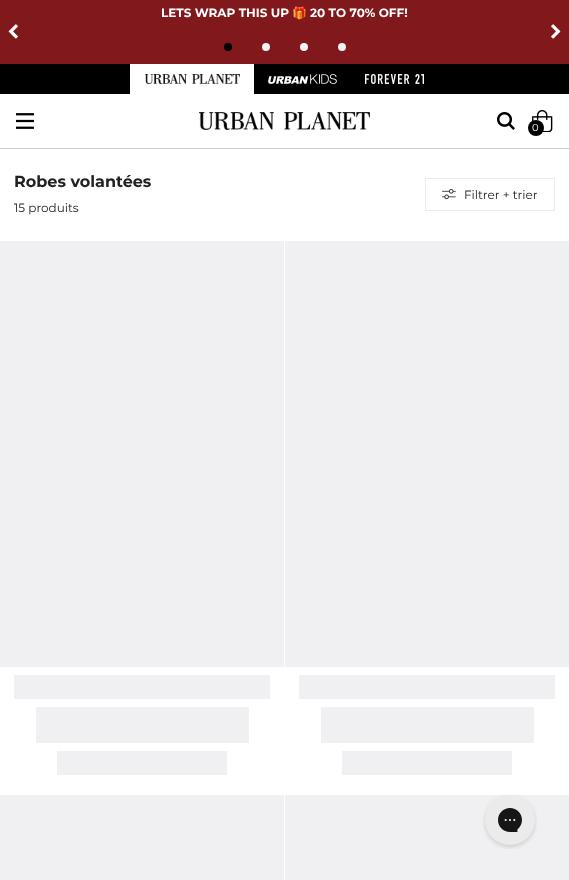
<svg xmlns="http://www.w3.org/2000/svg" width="569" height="880">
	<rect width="100%" height="100%" fill="#FFFFFF" />
	<rect x="0" y="0" width="569" height="64" fill="#81181C" />
	<text x="161" y="17" font-family="Montserrat" font-size="12" font-weight="700" fill="#FFFFFF">LETS WRAP THIS UP</text>
	<text x="292" y="17" font-family="Noto Color Emoji" font-size="12" font-weight="700" fill="#FFFFFF">🎁</text>
	<text x="310" y="17" font-family="Montserrat" font-size="12" font-weight="700" fill="#FFFFFF">20 TO 70% OFF!</text>
	<image x="8" y="24" width="10" height="15" href="assets/img1.png" />
	<image x="551" y="24" width="10" height="15" href="assets/img2.png" />
	<circle cx="228" cy="47" r="4" fill="#000000" />
	<circle cx="266" cy="47" r="4" fill="#F3F3F3" />
	<circle cx="304" cy="47" r="4" fill="#F3F3F3" />
	<circle cx="342" cy="47" r="4" fill="#F3F3F3" />
	<rect x="0" y="64" width="569" height="30" fill="#000000" />
	<rect x="130" y="64" width="124" height="30" fill="#FFFFFF" />
	<image x="145" y="74" width="95" height="10" href="assets/img3.png" />
	<image x="268" y="74" width="69" height="10" href="assets/img4.png" />
	<image x="365" y="74" width="59" height="10" href="assets/img5.png" />
	<rect x="0" y="148" width="569" height="1" fill="#CDCDCD" />
	<image x="16" y="113" width="18" height="16" href="assets/img6.png" />
	<image x="199" y="112" width="171" height="18" href="assets/img7.png" />
	<image x="497" y="112" width="18" height="18" href="assets/img8.png" />
	<image x="532" y="110" width="21" height="22" href="assets/img9.png" />
	<circle cx="536" cy="128" r="8" fill="#000000" />
	<text x="532" y="131" font-family="Montserrat" font-size="10" fill="#FFFFFF">0</text>
	<text x="14" y="187" font-family="Montserrat" font-size="16" font-weight="700" fill="#222222">Robes volantées</text>
	<rect x="425.5" y="178.5" width="129" height="32" fill="none" stroke="#EBEBEB" />
	<image x="442" y="189" width="14" height="11" href="assets/img10.png" />
	<g font-family="Montserrat" font-size="12" fill="#222222">
		<text x="464" y="199">Filtrer + trier</text>
		<text x="14" y="212">15 produits</text>
	</g>
	<rect x="0" y="241" width="284" height="426" fill="#F0F0F2" />
	<rect x="14" y="675" width="256" height="24" fill="#F0F0F2" />
	<rect x="36" y="707" width="213" height="36" fill="#F0F0F2" />
	<rect x="57" y="751" width="170" height="24" fill="#F0F0F2" />
	<rect x="285" y="241" width="284" height="426" fill="#F0F0F2" />
	<rect x="299" y="675" width="256" height="24" fill="#F0F0F2" />
	<rect x="321" y="707" width="213" height="36" fill="#F0F0F2" />
	<rect x="342" y="751" width="170" height="24" fill="#F0F0F2" />
	<rect x="0" y="795" width="284" height="85" fill="#F0F0F2" />
	<rect x="285" y="795" width="284" height="85" fill="#F0F0F2" />
	<image x="483" y="795" width="54" height="54" href="assets/img11.png" />
</svg>
